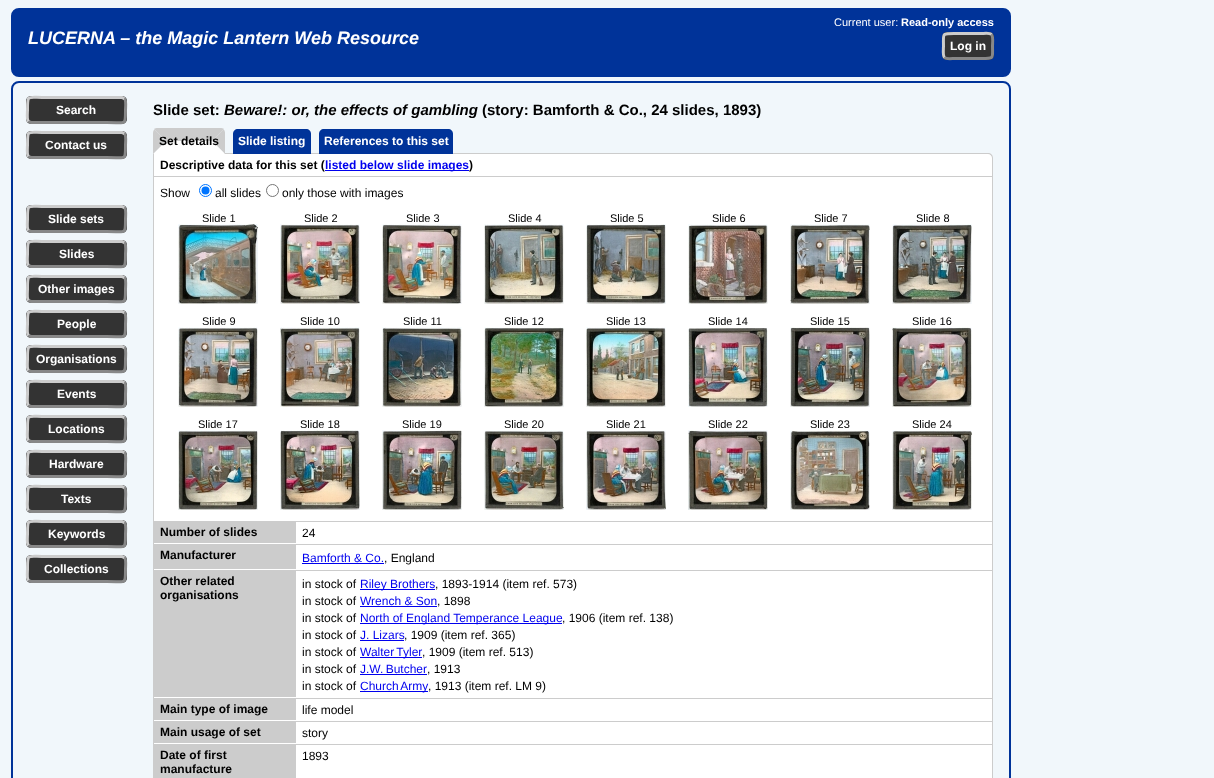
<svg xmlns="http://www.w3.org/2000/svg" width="1214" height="778">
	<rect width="100%" height="100%" fill="#F1F7FB" />
	<rect x="12" y="9" width="998" height="67" rx="7" fill="#003399" stroke="#003399" stroke-width="2" />
	<text x="28" y="44" font-family="Liberation Sans" font-size="18" font-weight="700" font-style="italic" fill="#FFFFFF">LUCERNA – the Magic Lantern Web Resource</text>
	<text x="834" y="26" font-family="Liberation Sans" font-size="11" fill="#FFFFFF">Current user:</text>
	<text x="901" y="26" font-family="Liberation Sans" font-size="11" font-weight="700" fill="#FFFFFF">Read-only access</text>
	<rect x="942" y="32" width="52" height="28" rx="5" fill="#333333" />
	<path d="M991.5 34.5C993.5 36.5 992.5 43.5 992.5 46C992.5 58.5 994.5 58.5 982 58.5H954C952.5 58.5 946.5 59.5 944.5 57.5" fill="none" stroke="#888888" stroke-width="3" />
	<path d="M944.5 57.5C942.5 55.5 943.5 48.5 943.5 46C943.5 33.5 941.5 33.5 954 33.5H982C983.5 33.5 989.5 32.5 991.5 34.5" fill="none" stroke="#CCCCCC" stroke-width="3" />
	<text x="950" y="50" font-family="Liberation Sans" font-size="12" font-weight="700" fill="#FFFFFF">Log in</text>
	<rect x="12" y="82" width="998" height="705" rx="7" fill="none" stroke="#003399" stroke-width="2" />
	<rect x="26" y="96" width="101" height="28" rx="5" fill="#333333" />
	<path d="M124.5 98.5C126.5 100.5 125.5 107.5 125.5 110C125.5 126.5 126 122.5 107 122.5H31L28.5 121.5" fill="none" stroke="#888888" stroke-width="3" />
	<path d="M28.5 121.5C26.5 119.5 27.5 112.5 27.5 110C27.5 93.5 27 97.5 46 97.5H122L124.5 98.5" fill="none" stroke="#CCCCCC" stroke-width="3" />
	<text x="56" y="114" font-family="Liberation Sans" font-size="12" font-weight="700" fill="#FFFFFF">Search</text>
	<rect x="26" y="131" width="101" height="28" rx="5" fill="#333333" />
	<path d="M124.5 133.5C126.5 135.5 125.5 142.5 125.5 145C125.5 161.5 126 157.5 107 157.5H31L28.5 156.5" fill="none" stroke="#888888" stroke-width="3" />
	<path d="M28.5 156.5C26.5 154.5 27.5 147.5 27.5 145C27.5 128.5 27 132.5 46 132.5H122L124.5 133.5" fill="none" stroke="#CCCCCC" stroke-width="3" />
	<text x="45" y="149" font-family="Liberation Sans" font-size="12" font-weight="700" fill="#FFFFFF">Contact us</text>
	<rect x="26" y="205" width="101" height="28" rx="5" fill="#333333" />
	<path d="M124.5 207.5C126.5 209.5 125.5 216.5 125.5 219C125.5 235.5 126 231.5 107 231.5H31L28.5 230.5" fill="none" stroke="#888888" stroke-width="3" />
	<path d="M28.5 230.5C26.5 228.5 27.5 221.5 27.5 219C27.5 202.5 27 206.5 46 206.5H122L124.5 207.5" fill="none" stroke="#CCCCCC" stroke-width="3" />
	<text x="48" y="223" font-family="Liberation Sans" font-size="12" font-weight="700" fill="#FFFFFF">Slide sets</text>
	<rect x="26" y="240" width="101" height="28" rx="5" fill="#333333" />
	<path d="M124.5 242.5C126.5 244.5 125.5 251.5 125.5 254C125.5 270.5 126 266.5 107 266.5H31L28.5 265.5" fill="none" stroke="#888888" stroke-width="3" />
	<path d="M28.5 265.5C26.5 263.5 27.5 256.5 27.5 254C27.5 237.5 27 241.5 46 241.5H122L124.5 242.5" fill="none" stroke="#CCCCCC" stroke-width="3" />
	<text x="59" y="258" font-family="Liberation Sans" font-size="12" font-weight="700" fill="#FFFFFF">Slides</text>
	<rect x="26" y="275" width="101" height="28" rx="5" fill="#333333" />
	<path d="M124.5 277.5C126.5 279.5 125.5 286.5 125.5 289C125.5 305.5 126 301.5 107 301.5H31L28.5 300.5" fill="none" stroke="#888888" stroke-width="3" />
	<path d="M28.5 300.5C26.5 298.5 27.5 291.5 27.5 289C27.5 272.5 27 276.5 46 276.5H122L124.5 277.5" fill="none" stroke="#CCCCCC" stroke-width="3" />
	<text x="38" y="293" font-family="Liberation Sans" font-size="12" font-weight="700" fill="#FFFFFF">Other images</text>
	<rect x="26" y="310" width="101" height="28" rx="5" fill="#333333" />
	<path d="M124.5 312.5C126.5 314.5 125.5 321.5 125.5 324C125.5 340.5 126 336.5 107 336.5H31L28.5 335.5" fill="none" stroke="#888888" stroke-width="3" />
	<path d="M28.5 335.5C26.5 333.5 27.5 326.5 27.5 324C27.5 307.5 27 311.5 46 311.5H122L124.5 312.5" fill="none" stroke="#CCCCCC" stroke-width="3" />
	<text x="57" y="328" font-family="Liberation Sans" font-size="12" font-weight="700" fill="#FFFFFF">People</text>
	<rect x="26" y="345" width="101" height="28" rx="5" fill="#333333" />
	<path d="M124.5 347.5C126.5 349.5 125.5 356.5 125.5 359C125.5 375.5 126 371.5 107 371.5H31L28.5 370.5" fill="none" stroke="#888888" stroke-width="3" />
	<path d="M28.5 370.5C26.5 368.5 27.5 361.5 27.5 359C27.5 342.5 27 346.5 46 346.5H122L124.5 347.5" fill="none" stroke="#CCCCCC" stroke-width="3" />
	<text x="36" y="363" font-family="Liberation Sans" font-size="12" font-weight="700" fill="#FFFFFF">Organisations</text>
	<rect x="26" y="380" width="101" height="28" rx="5" fill="#333333" />
	<path d="M124.5 382.5C126.5 384.5 125.5 391.5 125.5 394C125.5 410.5 126 406.5 107 406.5H31L28.5 405.5" fill="none" stroke="#888888" stroke-width="3" />
	<path d="M28.5 405.5C26.5 403.5 27.5 396.5 27.5 394C27.5 377.5 27 381.5 46 381.5H122L124.5 382.5" fill="none" stroke="#CCCCCC" stroke-width="3" />
	<text x="57" y="398" font-family="Liberation Sans" font-size="12" font-weight="700" fill="#FFFFFF">Events</text>
	<rect x="26" y="415" width="101" height="28" rx="5" fill="#333333" />
	<path d="M124.5 417.5C126.5 419.5 125.5 426.5 125.5 429C125.5 445.5 126 441.5 107 441.5H31L28.5 440.5" fill="none" stroke="#888888" stroke-width="3" />
	<path d="M28.5 440.5C26.5 438.5 27.5 431.5 27.5 429C27.5 412.5 27 416.5 46 416.5H122L124.5 417.5" fill="none" stroke="#CCCCCC" stroke-width="3" />
	<text x="48" y="433" font-family="Liberation Sans" font-size="12" font-weight="700" fill="#FFFFFF">Locations</text>
	<rect x="26" y="450" width="101" height="28" rx="5" fill="#333333" />
	<path d="M124.5 452.5C126.5 454.5 125.5 461.5 125.5 464C125.5 480.5 126 476.5 107 476.5H31L28.5 475.5" fill="none" stroke="#888888" stroke-width="3" />
	<path d="M28.5 475.5C26.5 473.5 27.5 466.5 27.5 464C27.5 447.5 27 451.5 46 451.5H122L124.5 452.5" fill="none" stroke="#CCCCCC" stroke-width="3" />
	<text x="49" y="468" font-family="Liberation Sans" font-size="12" font-weight="700" fill="#FFFFFF">Hardware</text>
	<rect x="26" y="485" width="101" height="28" rx="5" fill="#333333" />
	<path d="M124.5 487.5C126.5 489.5 125.5 496.5 125.5 499C125.5 515.5 126 511.5 107 511.5H31L28.5 510.5" fill="none" stroke="#888888" stroke-width="3" />
	<path d="M28.5 510.5C26.5 508.5 27.5 501.5 27.5 499C27.5 482.5 27 486.5 46 486.5H122L124.5 487.5" fill="none" stroke="#CCCCCC" stroke-width="3" />
	<text x="61" y="503" font-family="Liberation Sans" font-size="12" font-weight="700" fill="#FFFFFF">Texts</text>
	<rect x="26" y="520" width="101" height="28" rx="5" fill="#333333" />
	<path d="M124.5 522.5C126.5 524.5 125.5 531.5 125.5 534C125.5 550.5 126 546.5 107 546.5H31L28.5 545.5" fill="none" stroke="#888888" stroke-width="3" />
	<path d="M28.5 545.5C26.5 543.5 27.5 536.5 27.5 534C27.5 517.5 27 521.5 46 521.5H122L124.5 522.5" fill="none" stroke="#CCCCCC" stroke-width="3" />
	<text x="48" y="538" font-family="Liberation Sans" font-size="12" font-weight="700" fill="#FFFFFF">Keywords</text>
	<rect x="26" y="555" width="101" height="28" rx="5" fill="#333333" />
	<path d="M124.5 557.5C126.5 559.5 125.5 566.5 125.5 569C125.5 585.5 126 581.5 107 581.5H31L28.5 580.5" fill="none" stroke="#888888" stroke-width="3" />
	<path d="M28.5 580.5C26.5 578.5 27.5 571.5 27.5 569C27.5 552.5 27 556.5 46 556.5H122L124.5 557.5" fill="none" stroke="#CCCCCC" stroke-width="3" />
	<text x="44" y="573" font-family="Liberation Sans" font-size="12" font-weight="700" fill="#FFFFFF">Collections</text>
	<text x="153" y="115" font-family="Liberation Sans" font-size="15" font-weight="700" fill="#000000">Slide set:</text>
	<text x="224" y="115" font-family="Liberation Sans" font-size="15" font-weight="700" font-style="italic" fill="#000000">Beware!: or, the effects of gambling</text>
	<text x="482" y="115" font-family="Liberation Sans" font-size="15" font-weight="700" fill="#000000">(story: Bamforth &amp; Co., 24 slides, 1893)</text>
	<path d="M158 128H220C222 128 223 128 224 129L212 141H166L154 129C155 128 156 128 158 128Z" fill="#CCCCCC" />
	<path d="M153 153H988C991 153 993 155 993 158V176H153Z" fill="#FFFFFF" />
	<path d="M153 153H988C991 153 993 155 993 158V176H153ZM154 154H988C990 154 992 156 992 158V176H154Z" fill="#CCCCCC" fill-rule="evenodd" />
	<path d="M223.5 129.5L212 141L225 154V133C225 131.5 224.5 130 223.5 129.5Z" fill="#CCCCCC" />
	<path d="M225 154L212 141H166L153 154Z" fill="#FFFFFF" />
	<path d="M153 154V133C153 131.5 153.5 130 154.5 129.5L166 141Z" fill="#CCCCCC" />
	<text x="159" y="145" font-family="Liberation Sans" font-size="12" font-weight="700" fill="#000000">Set details</text>
	<path d="M238 129H306C309 129 311 131 311 134V154H233V134C233 131 235 129 238 129Z" fill="#003399" />
	<text x="238" y="145" font-family="Liberation Sans" font-size="12" font-weight="700" fill="#FFFFFF">Slide listing</text>
	<path d="M324 129H448C451 129 453 131 453 134V154H319V134C319 131 321 129 324 129Z" fill="#003399" />
	<text x="324" y="145" font-family="Liberation Sans" font-size="12" font-weight="700" fill="#FFFFFF">References to this set</text>
	<text x="160" y="169" font-family="Liberation Sans" font-size="12" font-weight="700" fill="#000000">Descriptive data for this set (</text>
	<rect x="325" y="170" width="144" height="1" fill="#0000EE" />
	<text x="325" y="169" font-family="Liberation Sans" font-size="12" font-weight="700" fill="#0000EE">listed below slide images</text>
	<text x="469" y="169" font-family="Liberation Sans" font-size="12" font-weight="700" fill="#000000">)</text>
	<rect x="154" y="177" width="838" height="344" fill="#FFFFFF" />
	<rect x="153" y="176" width="840" height="1" fill="#CCCCCC" />
	<rect x="992" y="176" width="1" height="602" fill="#CCCCCC" />
	<rect x="153" y="176" width="1" height="602" fill="#CCCCCC" />
	<text x="160" y="197" font-family="Liberation Sans" font-size="12" fill="#000000">Show</text>
	<circle cx="205.5" cy="190.5" r="6" fill="none" stroke="#0075FF" />
	<circle cx="205.5" cy="190.5" r="4" fill="#0075FF" />
	<text x="215" y="197" font-family="Liberation Sans" font-size="12" fill="#000000">all slides</text>
	<circle cx="272.5" cy="190.5" r="6" fill="none" stroke="#767676" />
	<text x="282" y="197" font-family="Liberation Sans" font-size="12" fill="#000000">only those with images</text>
	<text x="202" y="222" font-family="Liberation Sans" font-size="11" fill="#000000">Slide 1</text>
	<image x="178" y="224" width="80" height="80" href="assets/img1.png" />
	<text x="304" y="222" font-family="Liberation Sans" font-size="11" fill="#000000">Slide 2</text>
	<image x="280" y="224" width="80" height="80" href="assets/img2.png" />
	<text x="406" y="222" font-family="Liberation Sans" font-size="11" fill="#000000">Slide 3</text>
	<image x="382" y="224" width="80" height="80" href="assets/img3.png" />
	<text x="508" y="222" font-family="Liberation Sans" font-size="11" fill="#000000">Slide 4</text>
	<image x="484" y="224" width="80" height="80" href="assets/img4.png" />
	<text x="610" y="222" font-family="Liberation Sans" font-size="11" fill="#000000">Slide 5</text>
	<image x="586" y="224" width="80" height="80" href="assets/img5.png" />
	<text x="712" y="222" font-family="Liberation Sans" font-size="11" fill="#000000">Slide 6</text>
	<image x="688" y="224" width="80" height="80" href="assets/img6.png" />
	<text x="814" y="222" font-family="Liberation Sans" font-size="11" fill="#000000">Slide 7</text>
	<image x="790" y="224" width="80" height="80" href="assets/img7.png" />
	<text x="916" y="222" font-family="Liberation Sans" font-size="11" fill="#000000">Slide 8</text>
	<image x="892" y="224" width="80" height="80" href="assets/img8.png" />
	<text x="202" y="325" font-family="Liberation Sans" font-size="11" fill="#000000">Slide 9</text>
	<image x="178" y="327" width="80" height="80" href="assets/img9.png" />
	<text x="300" y="325" font-family="Liberation Sans" font-size="11" fill="#000000">Slide 10</text>
	<image x="280" y="327" width="80" height="80" href="assets/img10.png" />
	<text x="403" y="325" font-family="Liberation Sans" font-size="11" fill="#000000">Slide 11</text>
	<image x="382" y="327" width="80" height="80" href="assets/img11.png" />
	<text x="504" y="325" font-family="Liberation Sans" font-size="11" fill="#000000">Slide 12</text>
	<image x="484" y="327" width="80" height="80" href="assets/img12.png" />
	<text x="606" y="325" font-family="Liberation Sans" font-size="11" fill="#000000">Slide 13</text>
	<image x="586" y="327" width="80" height="80" href="assets/img13.png" />
	<text x="708" y="325" font-family="Liberation Sans" font-size="11" fill="#000000">Slide 14</text>
	<image x="688" y="328" width="80" height="79" href="assets/img14.png" />
	<text x="810" y="325" font-family="Liberation Sans" font-size="11" fill="#000000">Slide 15</text>
	<image x="790" y="327" width="80" height="80" href="assets/img15.png" />
	<text x="912" y="325" font-family="Liberation Sans" font-size="11" fill="#000000">Slide 16</text>
	<image x="892" y="327" width="80" height="80" href="assets/img16.png" />
	<text x="198" y="428" font-family="Liberation Sans" font-size="11" fill="#000000">Slide 17</text>
	<image x="178" y="430" width="80" height="80" href="assets/img17.png" />
	<text x="300" y="428" font-family="Liberation Sans" font-size="11" fill="#000000">Slide 18</text>
	<image x="280" y="430" width="80" height="80" href="assets/img18.png" />
	<text x="402" y="428" font-family="Liberation Sans" font-size="11" fill="#000000">Slide 19</text>
	<image x="382" y="430" width="80" height="80" href="assets/img19.png" />
	<text x="504" y="428" font-family="Liberation Sans" font-size="11" fill="#000000">Slide 20</text>
	<image x="484" y="430" width="80" height="80" href="assets/img20.png" />
	<text x="606" y="428" font-family="Liberation Sans" font-size="11" fill="#000000">Slide 21</text>
	<image x="586" y="430" width="80" height="80" href="assets/img21.png" />
	<text x="708" y="428" font-family="Liberation Sans" font-size="11" fill="#000000">Slide 22</text>
	<image x="688" y="430" width="80" height="80" href="assets/img22.png" />
	<text x="810" y="428" font-family="Liberation Sans" font-size="11" fill="#000000">Slide 23</text>
	<image x="790" y="430" width="80" height="80" href="assets/img23.png" />
	<text x="912" y="428" font-family="Liberation Sans" font-size="11" fill="#000000">Slide 24</text>
	<image x="892" y="430" width="80" height="80" href="assets/img24.png" />
	<rect x="296" y="522" width="696" height="256" fill="#FFFFFF" />
	<rect x="154" y="521" width="142" height="22" fill="#CCCCCC" />
	<rect x="154" y="543" width="142" height="1" fill="#FFFFFF" />
	<text x="160" y="536" font-family="Liberation Sans" font-size="12" font-weight="700" fill="#000000">Number of slides</text>
	<rect x="296" y="521" width="696" height="1" fill="#CCCCCC" />
	<text x="302" y="537" font-family="Liberation Sans" font-size="12" fill="#000000">24</text>
	<rect x="154" y="544" width="142" height="25" fill="#CCCCCC" />
	<rect x="154" y="569" width="142" height="1" fill="#FFFFFF" />
	<text x="160" y="559" font-family="Liberation Sans" font-size="12" font-weight="700" fill="#000000">Manufacturer</text>
	<rect x="296" y="544" width="696" height="1" fill="#CCCCCC" />
	<text x="302" y="562" font-family="Liberation Sans" font-size="12" fill="#0000EE">Bamforth &amp; Co.</text>
	<rect x="302" y="563" width="82" height="1" fill="#0000EE" />
	<text x="384" y="562" font-family="Liberation Sans" font-size="12" fill="#000000">, England</text>
	<rect x="154" y="570" width="142" height="127" fill="#CCCCCC" />
	<rect x="154" y="697" width="142" height="1" fill="#FFFFFF" />
	<g font-family="Liberation Sans" font-size="12" font-weight="700" fill="#000000">
		<text x="160" y="585">Other related</text>
		<text x="160" y="599">organisations</text>
	</g>
	<rect x="296" y="570" width="696" height="1" fill="#CCCCCC" />
	<text x="302" y="588" font-family="Liberation Sans" font-size="12" fill="#000000">in stock of</text>
	<rect x="360" y="589" width="75" height="1" fill="#0000EE" />
	<text x="360" y="588" font-family="Liberation Sans" font-size="12" fill="#0000EE">Riley Brothers</text>
	<g font-family="Liberation Sans" font-size="12" fill="#000000">
		<text x="435" y="588">, 1893-1914 (item ref. 573)</text>
		<text x="302" y="605">in stock of</text>
	</g>
	<text x="360" y="605" font-family="Liberation Sans" font-size="12" fill="#0000EE">Wrench &amp; Son</text>
	<rect x="360" y="606" width="77" height="1" fill="#0000EE" />
	<g font-family="Liberation Sans" font-size="12" fill="#000000">
		<text x="437" y="605">, 1898</text>
		<text x="302" y="622">in stock of</text>
	</g>
	<rect x="360" y="623" width="202" height="1" fill="#0000EE" />
	<text x="360" y="622" font-family="Liberation Sans" font-size="12" fill="#0000EE">North of England Temperance League</text>
	<g font-family="Liberation Sans" font-size="12" fill="#000000">
		<text x="562" y="622">, 1906 (item ref. 138)</text>
		<text x="302" y="639">in stock of</text>
	</g>
	<text x="360" y="639" font-family="Liberation Sans" font-size="12" fill="#0000EE">J. Lizars</text>
	<rect x="360" y="640" width="44" height="1" fill="#0000EE" />
	<g font-family="Liberation Sans" font-size="12" fill="#000000">
		<text x="404" y="639">, 1909 (item ref. 365)</text>
		<text x="302" y="656">in stock of</text>
	</g>
	<rect x="360" y="657" width="62" height="1" fill="#0000EE" />
	<text x="360" y="656" word-spacing="-1" font-family="Liberation Sans" font-size="12" fill="#0000EE">Walter Tyler</text>
	<g font-family="Liberation Sans" font-size="12" fill="#000000">
		<text x="422" y="656">, 1909 (item ref. 513)</text>
		<text x="302" y="673">in stock of</text>
	</g>
	<text x="360" y="673" word-spacing="-1" font-family="Liberation Sans" font-size="12" fill="#0000EE">J.W. Butcher</text>
	<rect x="360" y="674" width="67" height="1" fill="#0000EE" />
	<g font-family="Liberation Sans" font-size="12" fill="#000000">
		<text x="427" y="673">, 1913</text>
		<text x="302" y="690">in stock of</text>
	</g>
	<rect x="360" y="691" width="68" height="1" fill="#0000EE" />
	<text x="360" y="690" word-spacing="-1" font-family="Liberation Sans" font-size="12" fill="#0000EE">Church Army</text>
	<text x="428" y="690" font-family="Liberation Sans" font-size="12" fill="#000000">, 1913 (item ref. LM 9)</text>
	<rect x="154" y="698" width="142" height="22" fill="#CCCCCC" />
	<rect x="154" y="720" width="142" height="1" fill="#FFFFFF" />
	<text x="160" y="713" font-family="Liberation Sans" font-size="12" font-weight="700" fill="#000000">Main type of image</text>
	<rect x="296" y="698" width="696" height="1" fill="#CCCCCC" />
	<text x="302" y="714" font-family="Liberation Sans" font-size="12" fill="#000000">life model</text>
	<rect x="154" y="721" width="142" height="22" fill="#CCCCCC" />
	<rect x="154" y="743" width="142" height="1" fill="#FFFFFF" />
	<text x="160" y="736" font-family="Liberation Sans" font-size="12" font-weight="700" fill="#000000">Main usage of set</text>
	<rect x="296" y="721" width="696" height="1" fill="#CCCCCC" />
	<text x="302" y="737" font-family="Liberation Sans" font-size="12" fill="#000000">story</text>
	<rect x="154" y="744" width="142" height="34" fill="#CCCCCC" />
	<g font-family="Liberation Sans" font-size="12" font-weight="700" fill="#000000">
		<text x="160" y="759">Date of first</text>
		<text x="160" y="773">manufacture</text>
	</g>
	<rect x="296" y="744" width="696" height="1" fill="#CCCCCC" />
	<text x="302" y="760" font-family="Liberation Sans" font-size="12" fill="#000000">1893</text>
</svg>
